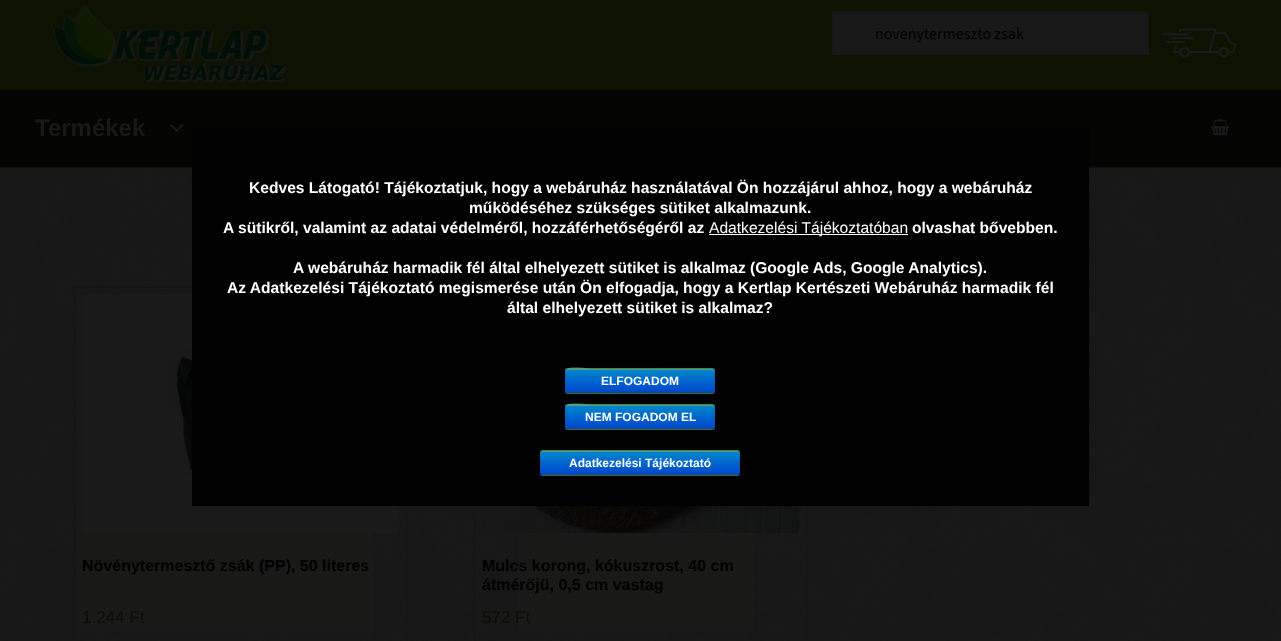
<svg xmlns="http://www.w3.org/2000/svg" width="1281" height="641">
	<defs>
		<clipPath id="clip1"><rect x="565" y="368" width="150" height="26" rx="3" /></clipPath>
		<linearGradient id="g1" gradientUnits="userSpaceOnUse" x1="640" y1="369" x2="640" y2="393"><stop offset="0" stop-color="#0088CC" /><stop offset="1" stop-color="#0044CC" /></linearGradient>
		<clipPath id="clip2"><rect x="565" y="404" width="150" height="26" rx="3" /></clipPath>
		<linearGradient id="g2" gradientUnits="userSpaceOnUse" x1="640" y1="405" x2="640" y2="429"><stop offset="0" stop-color="#0088CC" /><stop offset="1" stop-color="#0044CC" /></linearGradient>
		<clipPath id="clip3"><rect x="540" y="450" width="200" height="26" rx="3" /></clipPath>
		<linearGradient id="g3" gradientUnits="userSpaceOnUse" x1="640" y1="451" x2="640" y2="475"><stop offset="0" stop-color="#0088CC" /><stop offset="1" stop-color="#0044CC" /></linearGradient>
	</defs>
	<rect width="100%" height="100%" fill="#191919" />
	<image x="0" y="168" width="1281" height="473" href="assets/img1.png" />
	<rect x="0" y="0" width="1281" height="90" fill="#0E1200" />
	<rect x="0" y="167" width="1281" height="1" fill="#0E1300" />
	<image x="52" y="3" width="236" height="81" href="assets/img2.png" />
	<rect x="833" y="13" width="315" height="41" fill="#181818" />
	<rect x="833" y="12" width="315" height="1" fill="#151515" />
	<rect x="832.5" y="11.5" width="316" height="43" fill="none" stroke="#161616" />
	<text x="875" y="39" font-family="Source Sans Pro" font-size="16" fill="#000000">novenytermeszto zsak</text>
	<image x="1161" y="28" width="76" height="30" href="assets/img3.png" />
	<rect x="0" y="90" width="1281" height="77" fill="#040502" />
	<text x="35" y="136" font-family="Liberation Sans" font-size="24" font-weight="700" fill="#191919">Termékek</text>
	<image x="170" y="124" width="14" height="8" href="assets/img4.png" />
	<image x="1211" y="119" width="19" height="17" href="assets/img5.png" />
	<rect x="78" y="295" width="295" height="337" fill="#191918" />
	<rect x="74.5" y="287.5" width="332" height="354" fill="none" stroke="#141414" />
	<image x="82" y="295" width="317" height="238" href="assets/img6.png" />
	<text x="82" y="571" font-family="Liberation Sans" font-size="16" font-weight="700" fill="#000000">Növénytermesztő zsák (PP), 50 literes</text>
	<text x="82" y="623" font-family="Liberation Sans" font-size="17" fill="#0B0E00">1.244 Ft</text>
	<rect x="519" y="530" width="234" height="102" fill="#191918" />
	<rect x="474.5" y="287.5" width="332" height="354" fill="none" stroke="#141414" />
	<image x="482" y="506" width="317" height="27" href="assets/img7.png" />
	<g font-family="Liberation Sans" font-size="16" font-weight="700" fill="#000000">
		<text x="482" y="571">Mulcs korong, kókuszrost, 40 cm</text>
		<text x="482" y="590">átmérőjű, 0,5 cm vastag</text>
	</g>
	<text x="482" y="623" font-family="Liberation Sans" font-size="17" fill="#0B0E00">572 Ft</text>
	<rect x="192" y="128" width="897" height="378" fill="#000000" />
	<g font-family="Liberation Sans" font-size="15.6" font-weight="700" fill="#FFFFFF">
		<text x="249" y="193">Kedves Látogató! Tájékoztatjuk, hogy a webáruház használatával Ön hozzájárul ahhoz, hogy a webáruház</text>
		<text x="469" y="213">működéséhez szükséges sütiket alkalmazunk.</text>
		<text x="223" y="233">A sütikről, valamint az adatai védelméről, hozzáférhetőségéről az</text>
	</g>
	<rect x="709" y="234" width="199" height="1" fill="#FFFFFF" />
	<text x="709" y="233" font-family="Liberation Sans" font-size="15.6" fill="#FFFFFF">Adatkezelési Tájékoztatóban</text>
	<g font-family="Liberation Sans" font-size="15.6" font-weight="700" fill="#FFFFFF">
		<text x="912" y="233">olvashat bővebben.</text>
		<text x="293" y="273">A webáruház harmadik fél által elhelyezett sütiket is alkalmaz (Google Ads, Google Analytics).</text>
		<text x="227" y="293">Az Adatkezelési Tájékoztató megismerése után Ön elfogadja, hogy a Kertlap Kertészeti Webáruház harmadik fél</text>
		<text x="507" y="313">által elhelyezett sütiket is alkalmaz?</text>
	</g>
	<rect x="565" y="368" width="150" height="26" rx="3" fill="#6A9100" />
	<g clip-path="url(#clip1)">
		<rect x="565" y="369" width="150" height="24" fill="url(#g1)" />
	</g>
	<path d="M568 370H712C713 370 714 371 714 372C714 371 714 370 713 369H592C589 369 566 363 566 372C566 371 567 370 568 370Z" fill="#FFFFFF" fill-opacity="0.2" />
	<path d="M714 393L712 393.5H568L566 393" fill="none" stroke="#000000" stroke-opacity="0.25" />
	<path d="M566 393C564.5 391 565.5 383.5 565.5 381V374.5C565.5 372.5 565 368.5 568 368.5H712C715 368.5 714.5 372.5 714.5 374.5V381C714.5 383.5 715.5 391 714 393" fill="none" stroke="#000000" stroke-opacity="0.1" />
	<text x="601" y="385" font-family="Liberation Sans" font-size="12" font-weight="700" fill="#FFFFFF">ELFOGADOM</text>
	<rect x="565" y="404" width="150" height="26" rx="3" fill="#6A9100" />
	<g clip-path="url(#clip2)">
		<rect x="565" y="405" width="150" height="24" fill="url(#g2)" />
	</g>
	<path d="M568 406H712C713 406 714 407 714 408C714 407 714 406 713 405H592C589 405 566 399 566 408C566 407 567 406 568 406Z" fill="#FFFFFF" fill-opacity="0.2" />
	<path d="M714 429L712 429.5H568L566 429" fill="none" stroke="#000000" stroke-opacity="0.25" />
	<path d="M566 429C564.5 427 565.5 419.5 565.5 417V410.5C565.5 408.5 565 404.5 568 404.5H712C715 404.5 714.5 408.5 714.5 410.5V417C714.5 419.5 715.5 427 714 429" fill="none" stroke="#000000" stroke-opacity="0.1" />
	<text x="585" y="421" font-family="Liberation Sans" font-size="12" font-weight="700" fill="#FFFFFF">NEM FOGADOM EL</text>
	<rect x="540" y="450" width="200" height="26" rx="3" fill="#6A9100" />
	<g clip-path="url(#clip3)">
		<rect x="540" y="451" width="200" height="24" fill="url(#g3)" />
	</g>
	<path d="M543 452H737L739 453V454C739 453 739 451 737 451H543C541 451 541 453 541 454C541 453 542 452 543 452Z" fill="#FFFFFF" fill-opacity="0.2" />
	<path d="M739 475L737 475.5H543L541 475" fill="none" stroke="#000000" stroke-opacity="0.25" />
	<path d="M541 475C539.5 473 540.5 462.5 540.5 459.5C540.5 458 539 450.5 543 450.5H737C741 450.5 739.5 458 739.5 459.5C739.5 462.5 740.5 473 739 475" fill="none" stroke="#000000" stroke-opacity="0.1" />
	<text x="569" y="467" font-family="Liberation Sans" font-size="12" font-weight="700" fill="#FFFFFF">Adatkezelési Tájékoztató</text>
</svg>
